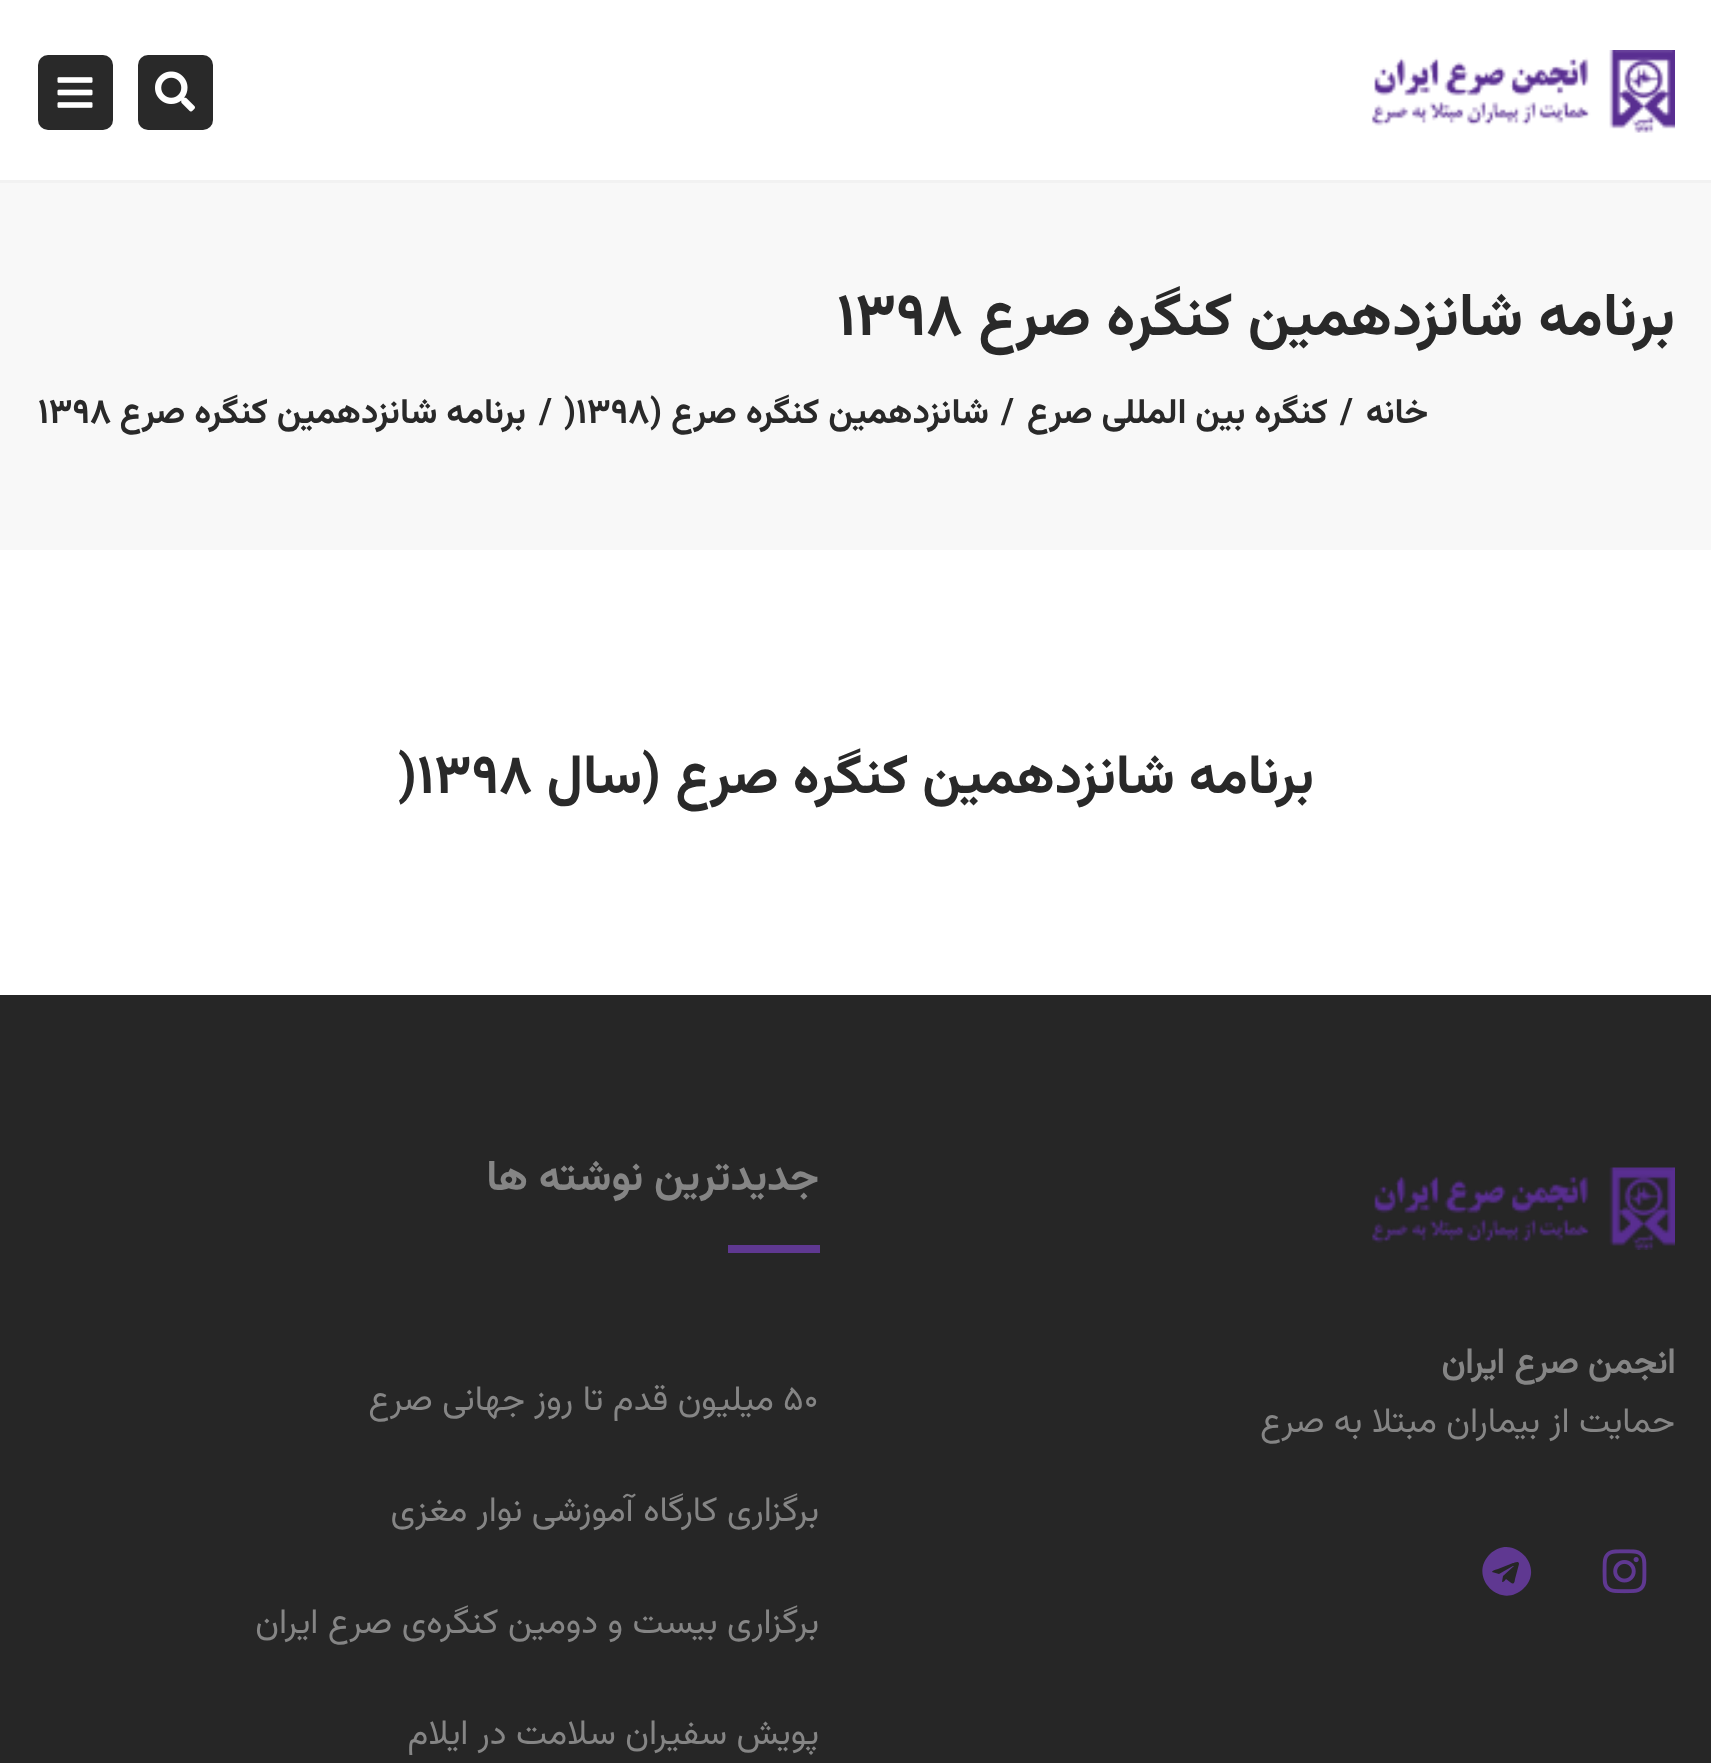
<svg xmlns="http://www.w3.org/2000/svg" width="1711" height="1763">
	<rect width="100%" height="100%" fill="#FFFFFF" />
	<image x="1371" y="50" width="304" height="83" href="assets/img1.png" />
	<rect x="0" y="180" width="1711" height="3" fill="#F2F2F2" />
	<rect x="138" y="55" width="75" height="75" rx="10" fill="#292929" />
	<image x="155" y="71" width="40" height="41" href="assets/img2.png" />
	<rect x="38" y="55" width="75" height="75" rx="10" fill="#292929" />
	<image x="57" y="77" width="36" height="31" href="assets/img3.png" />
	<rect x="0" y="183" width="1711" height="367" fill="#F8F8F8" />
	<text x="1675" y="335" font-family="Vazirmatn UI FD" font-size="60" font-weight="700" direction="rtl" fill="#292929">برنامه شانزدهمین کنگره صرع</text>
	<text x="837" y="335" font-family="Vazirmatn UI FD" font-size="60" font-weight="700" fill="#292929">1398</text>
	<text x="1428" y="423" font-family="Vazirmatn UI FD" font-size="35" font-weight="700" direction="rtl" fill="#292929">خانه</text>
	<text x="1340" y="423" font-family="Vazirmatn UI FD" font-size="35" font-weight="700" fill="#292929">/</text>
	<text x="1328" y="423" font-family="Vazirmatn UI FD" font-size="35" font-weight="700" direction="rtl" fill="#292929">کنگره بین المللی صرع</text>
	<text x="1001" y="423" font-family="Vazirmatn UI FD" font-size="35" font-weight="700" fill="#292929">/</text>
	<text x="989" y="423" font-family="Vazirmatn UI FD" font-size="35" font-weight="700" direction="rtl" fill="#292929">شانزدهمین کنگره صرع (</text>
	<g font-family="Vazirmatn UI FD" font-size="35" font-weight="700" fill="#292929">
		<text x="564" y="423">)1398</text>
		<text x="539" y="423">/</text>
	</g>
	<text x="526" y="423" font-family="Vazirmatn UI FD" font-size="35" font-weight="700" direction="rtl" fill="#292929">برنامه شانزدهمین کنگره صرع</text>
	<text x="38" y="423" font-family="Vazirmatn UI FD" font-size="35" font-weight="700" fill="#292929">1398</text>
	<text x="1314" y="793" font-family="Vazirmatn UI FD" font-size="55" font-weight="700" direction="rtl" fill="#292929">برنامه شانزدهمین کنگره صرع (سال</text>
	<text x="398" y="793" font-family="Vazirmatn UI FD" font-size="55" font-weight="700" fill="#292929">)۱۳۹۸</text>
	<rect x="0" y="995" width="1711" height="768" fill="#262626" />
	<image x="1371" y="1167" width="304" height="83" href="assets/img4.png" />
	<text x="1675" y="1373" font-family="'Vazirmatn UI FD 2'" font-size="35" font-weight="700" direction="rtl" fill="#858585">انجمن صرع ایران</text>
	<text x="1675" y="1432" font-family="Vazirmatn UI FD" font-size="35" direction="rtl" fill="#858585">حمایت از بیماران مبتلا به صرع</text>
	<image x="1602" y="1549" width="45" height="45" href="assets/img5.png" />
	<path d="M1490 1554C1512 1532 1546 1566 1524 1588C1501 1611 1467 1577 1490 1554ZM1519 1564C1519 1560 1514 1563 1513 1563L1498 1569C1494 1570 1492 1571 1492 1572L1499 1574L1513 1566H1514L1503 1576L1502 1582C1504 1582 1505 1580 1506 1579C1512 1583 1514 1587 1515 1579Z" fill="#5F3891" />
	<text x="819" y="1190" font-family="Vazirmatn UI FD" font-size="42.5" font-weight="700" direction="rtl" fill="#858585">جدیدترین نوشته ها</text>
	<rect x="728" y="1245" width="92" height="8" fill="#5F3891" />
	<text x="783" y="1410" font-family="Vazirmatn UI FD" font-size="35" fill="#858585">50</text>
	<g font-family="Vazirmatn UI FD" font-size="35" direction="rtl" fill="#858585">
		<text x="774" y="1410">میلیون قدم تا روز جهانی صرع</text>
		<text x="819" y="1521">برگزاری کارگاه آموزشی نوار مغزی</text>
		<text x="819" y="1633">برگزاری بیست و دومین کنگره‌ی صرع ایران</text>
		<text x="819" y="1744">پویش سفیران سلامت در ایلام</text>
	</g>
</svg>
